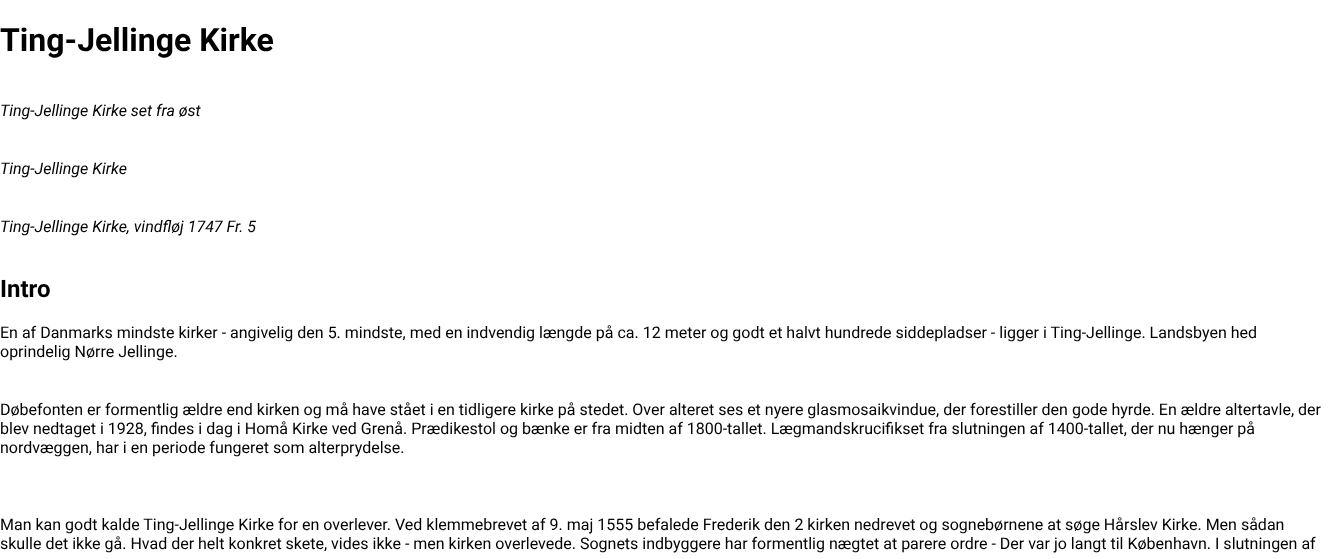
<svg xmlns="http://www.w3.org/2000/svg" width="1329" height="559">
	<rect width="100%" height="100%" fill="#FFFFFF" />
	<text x="0" y="51" font-family="Roboto" font-size="32" font-weight="700" fill="#000000">Ting-Jellinge Kirke</text>
	<g font-family="Roboto" font-size="16" font-style="italic" fill="#000000">
		<text x="0" y="116">Ting-Jellinge Kirke set fra øst</text>
		<text x="0" y="174">Ting-Jellinge Kirke</text>
		<text x="0" y="232">Ting-Jellinge Kirke, vindfløj 1747 Fr. 5</text>
	</g>
	<text x="0" y="297" font-family="Roboto" font-size="24" font-weight="700" fill="#000000">Intro</text>
	<g font-family="Roboto" font-size="16" fill="#000000">
		<text x="0" y="338">En af Danmarks mindste kirker - angivelig den 5. mindste, med en indvendig længde på ca. 12 meter og godt et halvt hundrede siddepladser - ligger i Ting-Jellinge. Landsbyen hed</text>
		<text x="0" y="357">oprindelig Nørre Jellinge.</text>
		<text x="0" y="415">Døbefonten er formentlig ældre end kirken og må have stået i en tidligere kirke på stedet. Over alteret ses et nyere glasmosaikvindue, der forestiller den gode hyrde. En ældre altertavle, der</text>
		<text x="0" y="434">blev nedtaget i 1928, findes i dag i Homå Kirke ved Grenå. Prædikestol og bænke er fra midten af 1800-tallet. Lægmandskrucifikset fra slutningen af 1400-tallet, der nu hænger på</text>
		<text x="0" y="453">nordvæggen, har i en periode fungeret som alterprydelse.</text>
		<text x="0" y="530">Man kan godt kalde Ting-Jellinge Kirke for en overlever. Ved klemmebrevet af 9. maj 1555 befalede Frederik den 2 kirken nedrevet og sognebørnene at søge Hårslev Kirke. Men sådan</text>
		<text x="0" y="549">skulle det ikke gå. Hvad der helt konkret skete, vides ikke - men kirken overlevede. Sognets indbyggere har formentlig nægtet at parere ordre - Der var jo langt til København. I slutningen af</text>
	</g>
</svg>
